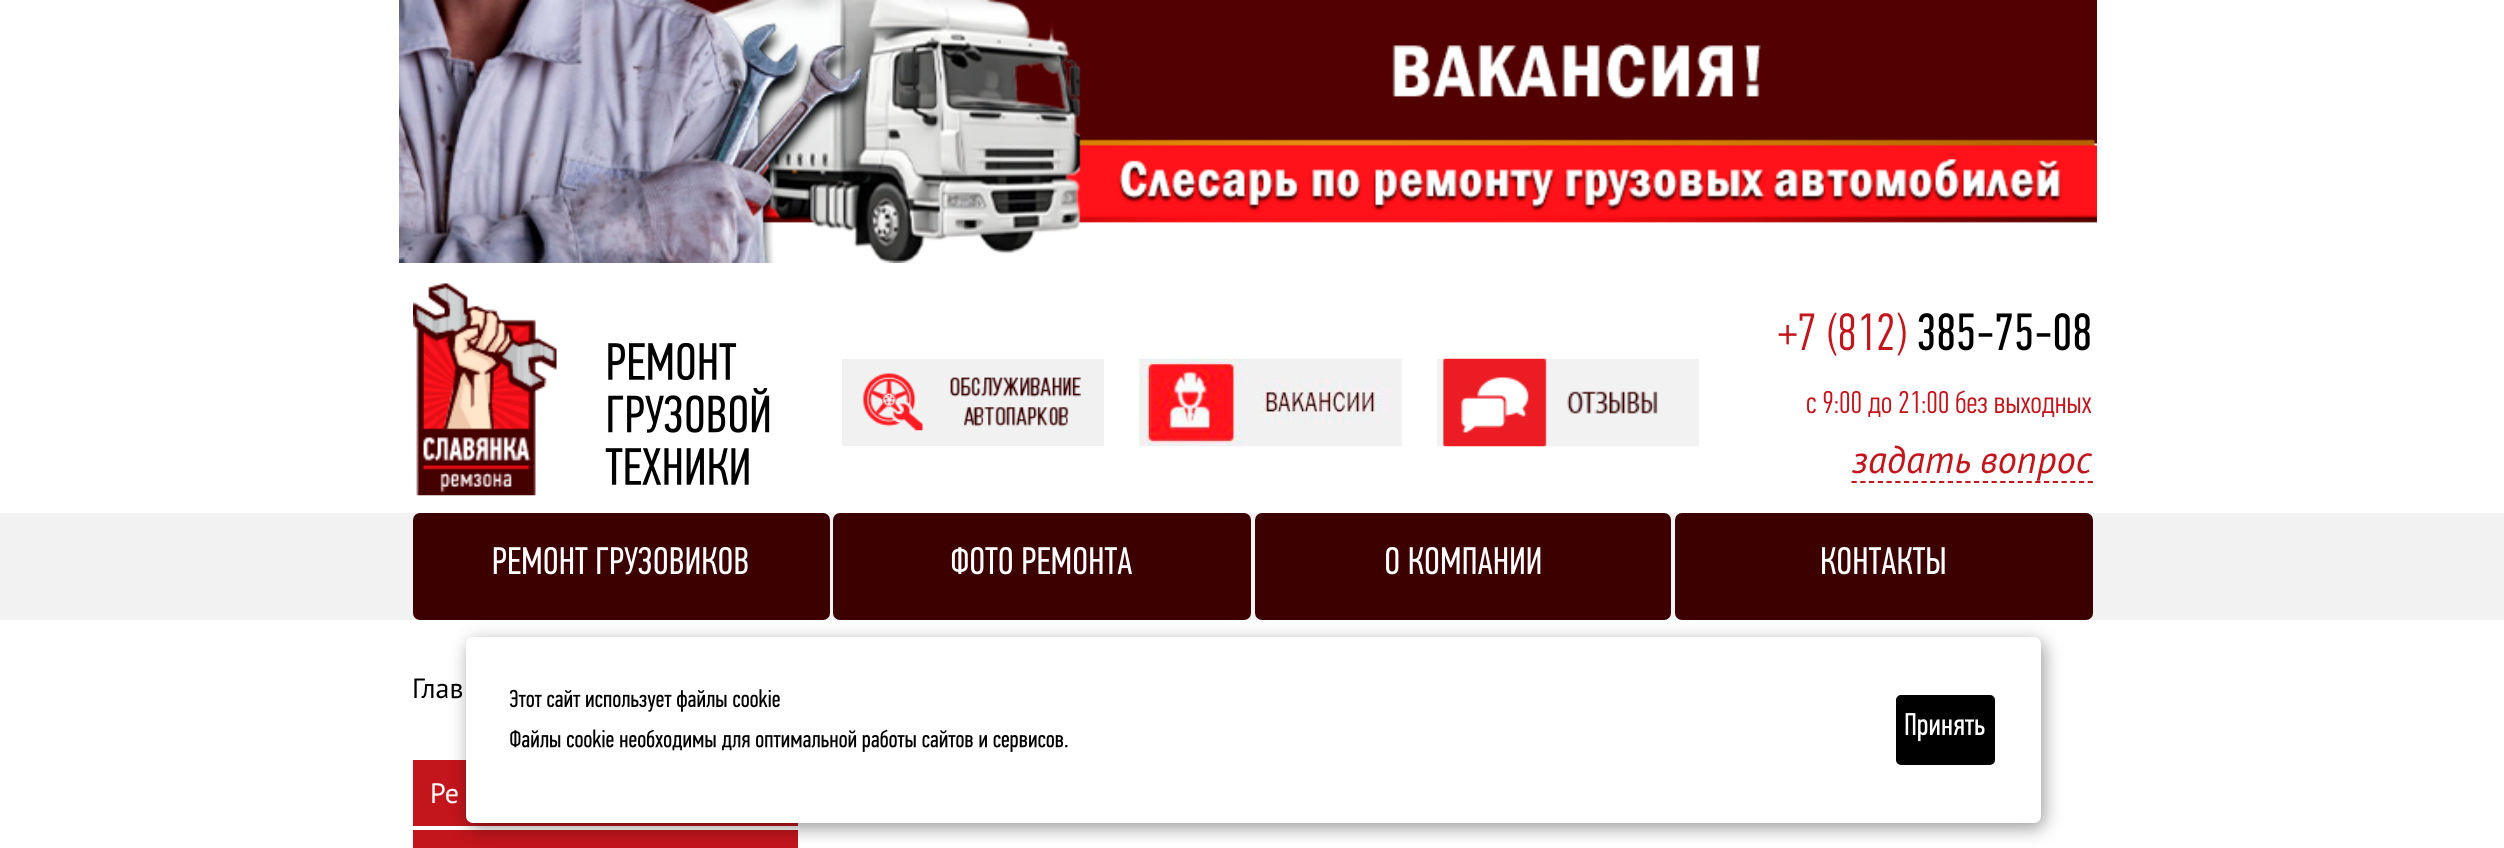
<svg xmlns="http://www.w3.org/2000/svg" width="2504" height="848">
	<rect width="100%" height="100%" fill="#FFFFFF" />
	<image x="399" y="0" width="1698" height="263" href="assets/img1.png" />
	<image x="413" y="283" width="144" height="213" href="assets/img2.png" />
	<image x="608" y="342" width="129" height="39" href="assets/img3.png" />
	<image x="608" y="388" width="162" height="45" href="assets/img4.png" />
	<image x="605" y="448" width="144" height="37" href="assets/img5.png" />
	<image x="842" y="359" width="262" height="87" href="assets/img6.png" />
	<image x="1139" y="358" width="263" height="89" href="assets/img7.png" />
	<image x="1437" y="358" width="262" height="89" href="assets/img8.png" />
	<image x="1778" y="312" width="128" height="44" href="assets/img9.png" />
	<image x="1918" y="313" width="172" height="38" href="assets/img10.png" />
	<image x="1807" y="390" width="285" height="27" href="assets/img11.png" />
	<path d="M1851.5 482H2093" fill="none" stroke="#C2161C" stroke-width="1.8" stroke-dasharray="5.25 3.5" />
	<text x="1852" y="473" font-family="PT Sans" font-size="38.5" font-style="italic" fill="#C2161C">задать вопрос</text>
	<rect x="0" y="513" width="2504" height="107" fill="#F2F2F2" />
	<rect x="413" y="513" width="417" height="107" rx="7" fill="#3D0000" />
	<image x="493" y="547" width="255" height="28" href="assets/img12.png" />
	<rect x="833" y="513" width="418" height="107" rx="7" fill="#3D0000" />
	<image x="951" y="547" width="181" height="28" href="assets/img13.png" />
	<rect x="1255" y="513" width="416" height="107" rx="7" fill="#3D0000" />
	<image x="1386" y="547" width="155" height="28" href="assets/img14.png" />
	<rect x="1675" y="513" width="418" height="107" rx="7" fill="#3D0000" />
	<image x="1822" y="547" width="123" height="28" href="assets/img15.png" />
	<text x="412" y="698" font-family="PT Sans" font-size="28" fill="#000000">Глав</text>
	<rect x="413" y="760" width="385" height="66" fill="#C2161C" />
	<text x="430" y="803" font-family="PT Sans" font-size="28" fill="#FFFFFF">Ре</text>
	<rect x="413" y="830" width="385" height="18" fill="#C2161C" />
	<rect x="469" y="642" width="1575" height="186" rx="7" fill="#000000" fill-opacity="0.4" filter="blur(9px)" />
	<rect x="466" y="637" width="1575" height="186" rx="7" fill="#FFFFFF" />
	<image x="509" y="689" width="271" height="23" href="assets/img16.png" />
	<image x="510" y="729" width="558" height="23" href="assets/img17.png" />
	<rect x="1895" y="694" width="101" height="72" rx="6" fill="#000000" stroke="#FFFFFF" stroke-width="2" />
	<image x="1905" y="713" width="80" height="29" href="assets/img18.png" />
</svg>
